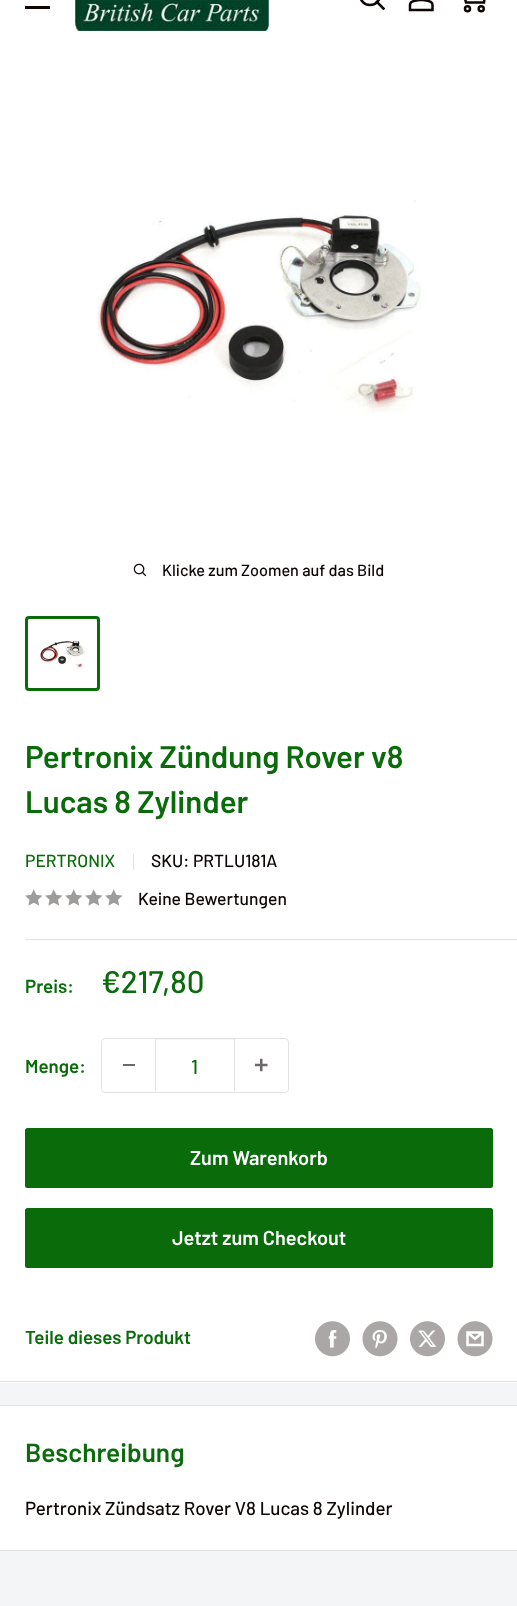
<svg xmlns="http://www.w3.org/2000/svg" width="517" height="1606">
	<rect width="100%" height="100%" fill="#F3F5F6" />
	<rect x="0" y="0" width="517" height="1383" fill="#FFFFFF" />
	<rect x="25" y="6" width="25" height="3" fill="#0D0404" />
	<image x="75" y="0" width="194" height="31" href="assets/img1.png" />
	<path d="M383.5 8.5L377 2" fill="none" stroke="#0D0404" stroke-width="2.6" stroke-linecap="square" />
	<circle cx="370" cy="-5" r="10" fill="none" stroke="#0D0404" stroke-width="2.6" />
	<image x="408" y="0" width="26" height="12" href="assets/img2.png" />
	<circle cx="467.5" cy="8.8" r="2.5" fill="none" stroke="#0D0404" stroke-width="2.5" />
	<circle cx="481.2" cy="8.8" r="2.5" fill="none" stroke="#0D0404" stroke-width="2.5" />
	<path d="M463-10H485.5L484 2.5H466L461.5-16H454" fill="none" stroke="#0D0404" stroke-width="2.5" />
	<image x="97" y="200" width="324" height="213" href="assets/img3.png" />
	<image x="133" y="563" width="14" height="14" href="assets/img4.png" />
	<text x="162" y="576" font-family="Barlow" font-size="16.25" font-weight="500" fill="#0D0404">Klicke zum Zoomen auf das Bild</text>
	<rect x="26.5" y="617.5" width="72" height="72" rx="2.5" fill="none" stroke="#096B09" stroke-width="3" />
	<image x="40" y="640" width="45" height="28" href="assets/img5.png" />
	<rect x="0" y="1381" width="517" height="1" fill="#E1E3E4" />
	<g font-family="Barlow" font-size="31.25" font-weight="600" fill="#096B09">
		<text x="25" y="768">Pertronix Zündung Rover v8</text>
		<text x="25" y="813">Lucas 8 Zylinder</text>
	</g>
	<text x="25" y="867" font-family="Barlow" font-size="17.5" font-weight="500" fill="#096B09">PERTRONIX</text>
	<rect x="133" y="854" width="1" height="16" fill="#E1E3E4" />
	<text x="151" y="867" font-family="Barlow" font-size="17.5" font-weight="500" fill="#0D0404">SKU: PRTLU181A</text>
	<image x="25" y="889" width="18" height="17" href="assets/img6.png" />
	<image x="45" y="889" width="18" height="17" href="assets/img6.png" />
	<image x="65" y="889" width="18" height="17" href="assets/img6.png" />
	<image x="85" y="889" width="18" height="17" href="assets/img6.png" />
	<image x="105" y="889" width="18" height="17" href="assets/img6.png" />
	<text x="138" y="905" font-family="Barlow" font-size="17.5" font-weight="500" fill="#0D0404">Keine Bewertungen</text>
	<rect x="25" y="939" width="492" height="1" fill="#E1E3E4" />
	<text x="25" y="993" font-family="Barlow" font-size="18.75" font-weight="600" fill="#096B09">Preis:</text>
	<text x="101" y="993" font-family="Barlow" font-size="31.25" font-weight="500" fill="#096B09">€217,80</text>
	<text x="25" y="1073" font-family="Barlow" font-size="18.75" font-weight="600" fill="#096B09">Menge:</text>
	<rect x="101.5" y="1038.5" width="187" height="54" rx="3.5" fill="none" stroke="#E1E3E4" />
	<rect x="123" y="1064" width="12" height="2" fill="#6E6868" />
	<rect x="156" y="1039" width="78" height="1" fill="#F3F4F4" />
	<rect x="234" y="1039" width="1" height="52" fill="#E1E3E4" />
	<rect x="155" y="1039" width="1" height="52" fill="#E1E3E4" />
	<text x="191" y="1074" font-family="Barlow" font-size="20" font-weight="500" fill="#096B09">1</text>
	<image x="255" y="1058" width="13" height="14" href="assets/img7.png" />
	<rect x="25" y="1128" width="468" height="60" rx="2.5" fill="#096B09" />
	<text x="190" y="1165" font-family="Barlow" font-size="20" font-weight="600" fill="#FFFFFF">Zum Warenkorb</text>
	<rect x="25" y="1208" width="468" height="60" rx="2.5" fill="#096B09" />
	<text x="172" y="1245" font-family="Barlow" font-size="20" font-weight="600" fill="#FFFFFF">Jetzt zum Checkout</text>
	<text x="25" y="1344" font-family="Barlow" font-size="18.75" font-weight="600" fill="#096B09">Teile dieses Produkt</text>
	<image x="315" y="1321" width="35" height="36" href="assets/img8.png" />
	<image x="362" y="1321" width="36" height="36" href="assets/img9.png" />
	<image x="410" y="1321" width="35" height="36" href="assets/img10.png" />
	<image x="457" y="1321" width="36" height="36" href="assets/img11.png" />
	<rect x="0" y="1406" width="517" height="144" fill="#FFFFFF" />
	<rect x="0" y="1405" width="517" height="1" fill="#E1E3E4" />
	<rect x="0" y="1550" width="517" height="1" fill="#E1E3E4" />
	<text x="25" y="1462" font-family="Barlow" font-size="26.25" font-weight="600" fill="#096B09">Beschreibung</text>
	<text x="25" y="1515" font-family="Barlow" font-size="18.75" font-weight="500" fill="#0D0404">Pertronix Zündsatz Rover V8 Lucas 8 Zylinder</text>
</svg>
